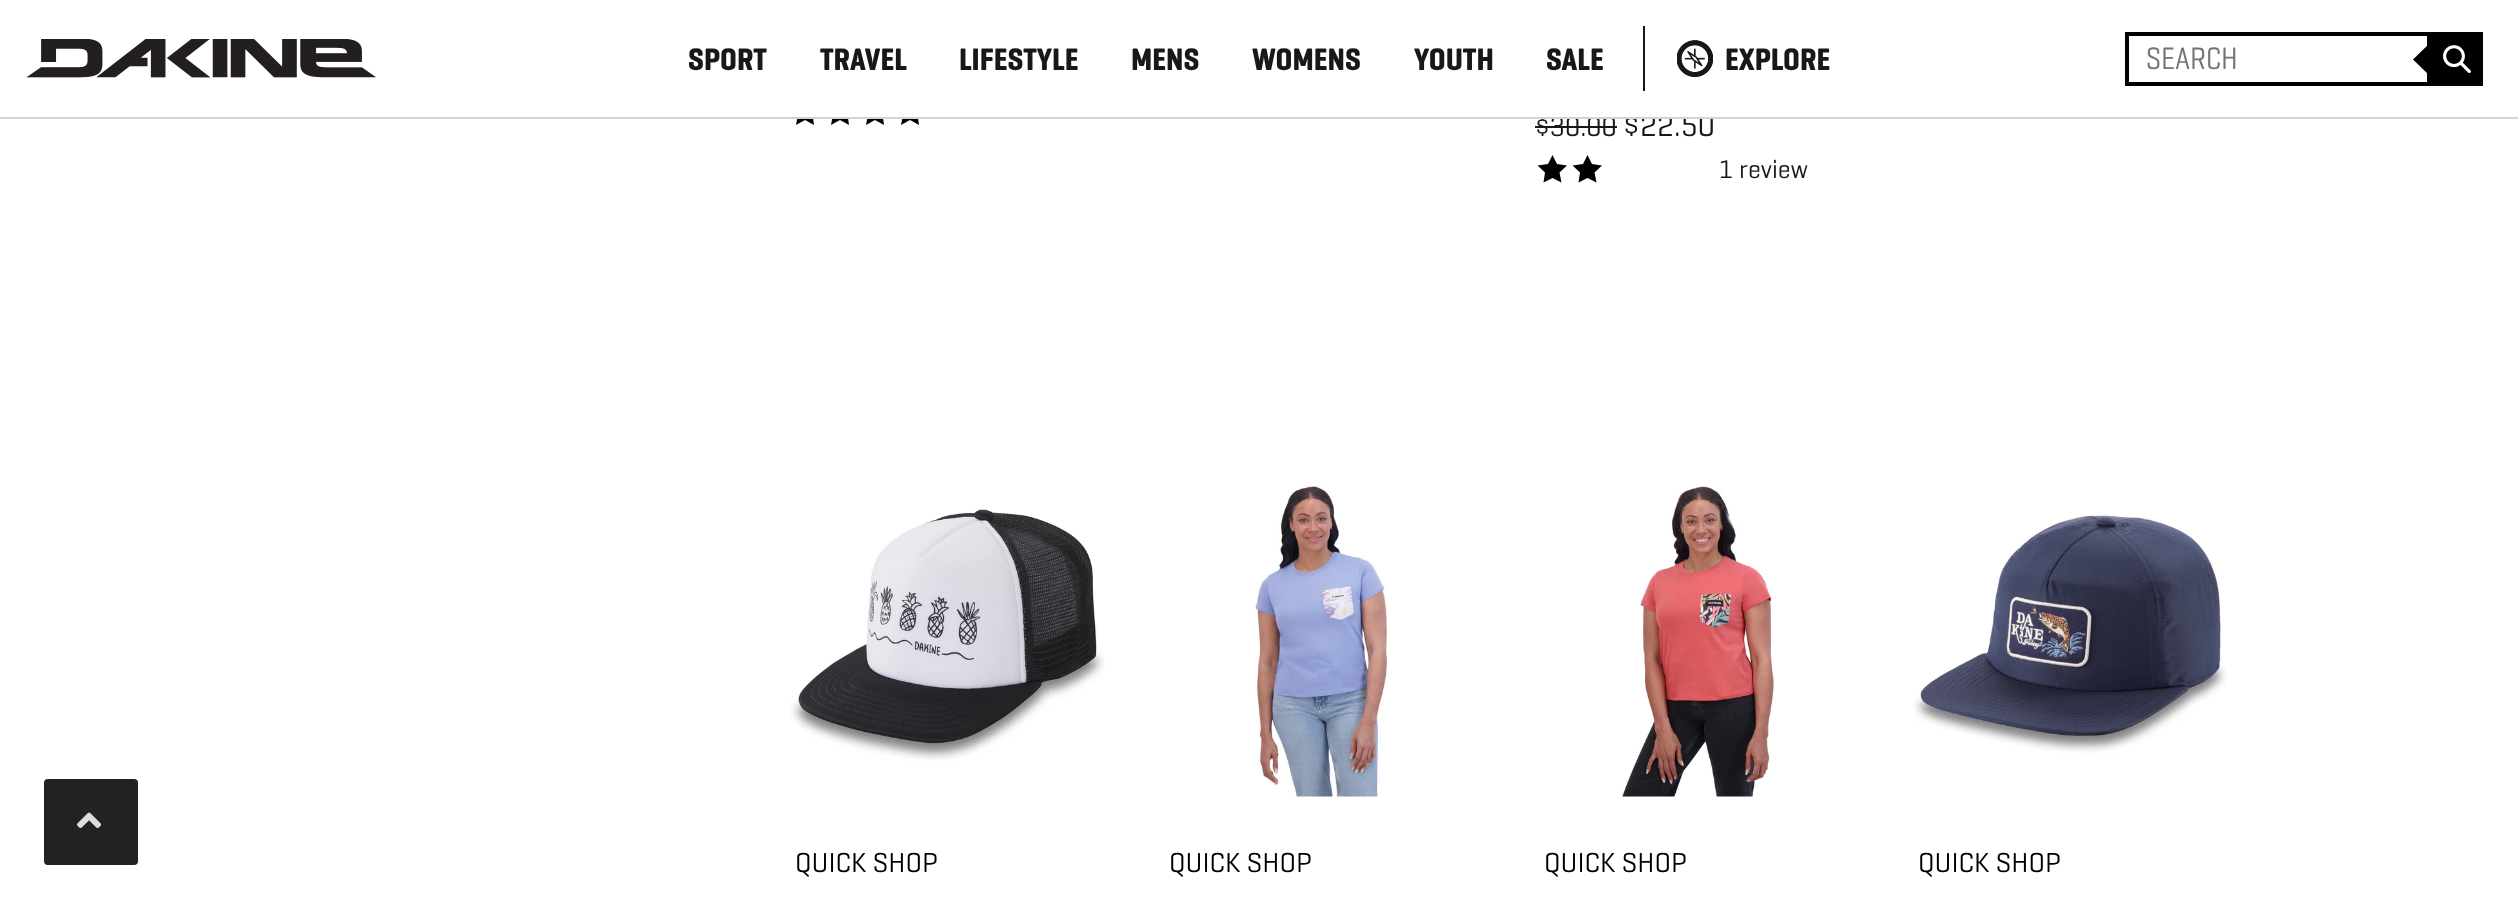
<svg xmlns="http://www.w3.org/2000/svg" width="2518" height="908">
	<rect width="100%" height="100%" fill="#FFFFFF" />
	<path d="M805 97L809.5 106L819.5 107.5L812.5 114.5L814 125L805 120L796 125L798 114.5L790.5 107.5L800.5 106Z" fill="#000000" />
	<path d="M840 97L844.5 106L854.5 107.5L847.5 114.5L849 125L840 120L831 125L833 114.5L825.5 107.5L835.5 106Z" fill="#000000" />
	<path d="M875 97L879.5 106L889.5 107.5L882.5 114.5L884 125L875 120L866 125L868 114.5L860.5 107.5L870.5 106Z" fill="#000000" />
	<path d="M910 97L914.5 106L924.5 107.5L917.5 114.5L919 125L910 120L901 125L903 114.5L895.5 107.5L905.5 106Z" fill="#000000" />
	<text x="1535" y="136" font-family="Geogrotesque" font-size="28" fill="#191818">$30.00</text>
	<text x="1623" y="136" font-family="Geogrotesque" font-size="31.5" fill="#191818">$22.50</text>
	<rect x="790" y="97" width="923" height="20" fill="#FFFFFF" />
	<rect x="0" y="117" width="2518" height="2" fill="#D3D3D3" />
	<image x="26" y="39" width="350" height="39" href="assets/img1.png" />
	<g font-family="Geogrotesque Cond" font-size="31.5" font-weight="700" fill="#191818">
		<text x="688" y="70">SPORT</text>
		<text x="820" y="70">TRAVEL</text>
		<text x="959" y="70">LIFESTYLE</text>
		<text x="1131" y="70">MENS</text>
		<text x="1252" y="70">WOMENS</text>
		<text x="1414" y="70">YOUTH</text>
		<text x="1546" y="70">SALE</text>
	</g>
	<rect x="1643" y="26" width="2" height="65" fill="#191818" />
	<image x="1677" y="40" width="36" height="37" href="assets/img2.png" />
	<text x="1725" y="70" font-family="Geogrotesque Cond" font-size="31.5" font-weight="700" fill="#191818">EXPLORE</text>
	<rect x="2127" y="34" width="302" height="50" fill="none" stroke="#000000" stroke-width="4" />
	<text x="2146" y="69" font-family="Geogrotesque Cond" font-size="31.5" fill="#757474">SEARCH</text>
	<rect x="2431" y="32" width="52" height="54" fill="#000000" />
	<path d="M2431 42V77L2413 59.5Z" fill="#000000" />
	<image x="2443" y="45" width="28" height="29" href="assets/img3.png" />
	<rect x="44" y="779" width="94" height="86" rx="4" fill="#222222" />
	<image x="77" y="812" width="24" height="16" href="assets/img4.png" />
	<rect x="1535" y="126" width="82" height="2" fill="#191818" />
	<path d="M1552.5 155L1557 164L1567 165.5L1559.5 172.5L1561.5 182.5L1552.5 178L1543.5 182.5L1545 172.5L1537.5 165.5L1548 164Z" fill="#000000" />
	<path d="M1587.5 155L1592 164L1602 165.5L1594.5 172.5L1596.5 182.5L1587.5 178L1578.5 182.5L1580 172.5L1572.5 165.5L1583 164Z" fill="#000000" />
	<text x="1719" y="178" font-family="Geogrotesque" font-size="26" fill="#191818">1 review</text>
	<image x="791" y="509" width="314" height="252" href="assets/img5.png" />
	<text x="795" y="872" font-family="Geogrotesque" font-size="28" fill="#000000">QUICK SHOP</text>
	<image x="1253" y="485" width="134" height="312" href="assets/img6.png" />
	<text x="1169" y="872" font-family="Geogrotesque" font-size="28" fill="#000000">QUICK SHOP</text>
	<image x="1622" y="486" width="153" height="311" href="assets/img7.png" />
	<text x="1544" y="872" font-family="Geogrotesque" font-size="28" fill="#000000">QUICK SHOP</text>
	<image x="1913" y="515" width="314" height="238" href="assets/img8.png" />
	<text x="1918" y="872" font-family="Geogrotesque" font-size="28" fill="#000000">QUICK SHOP</text>
</svg>
